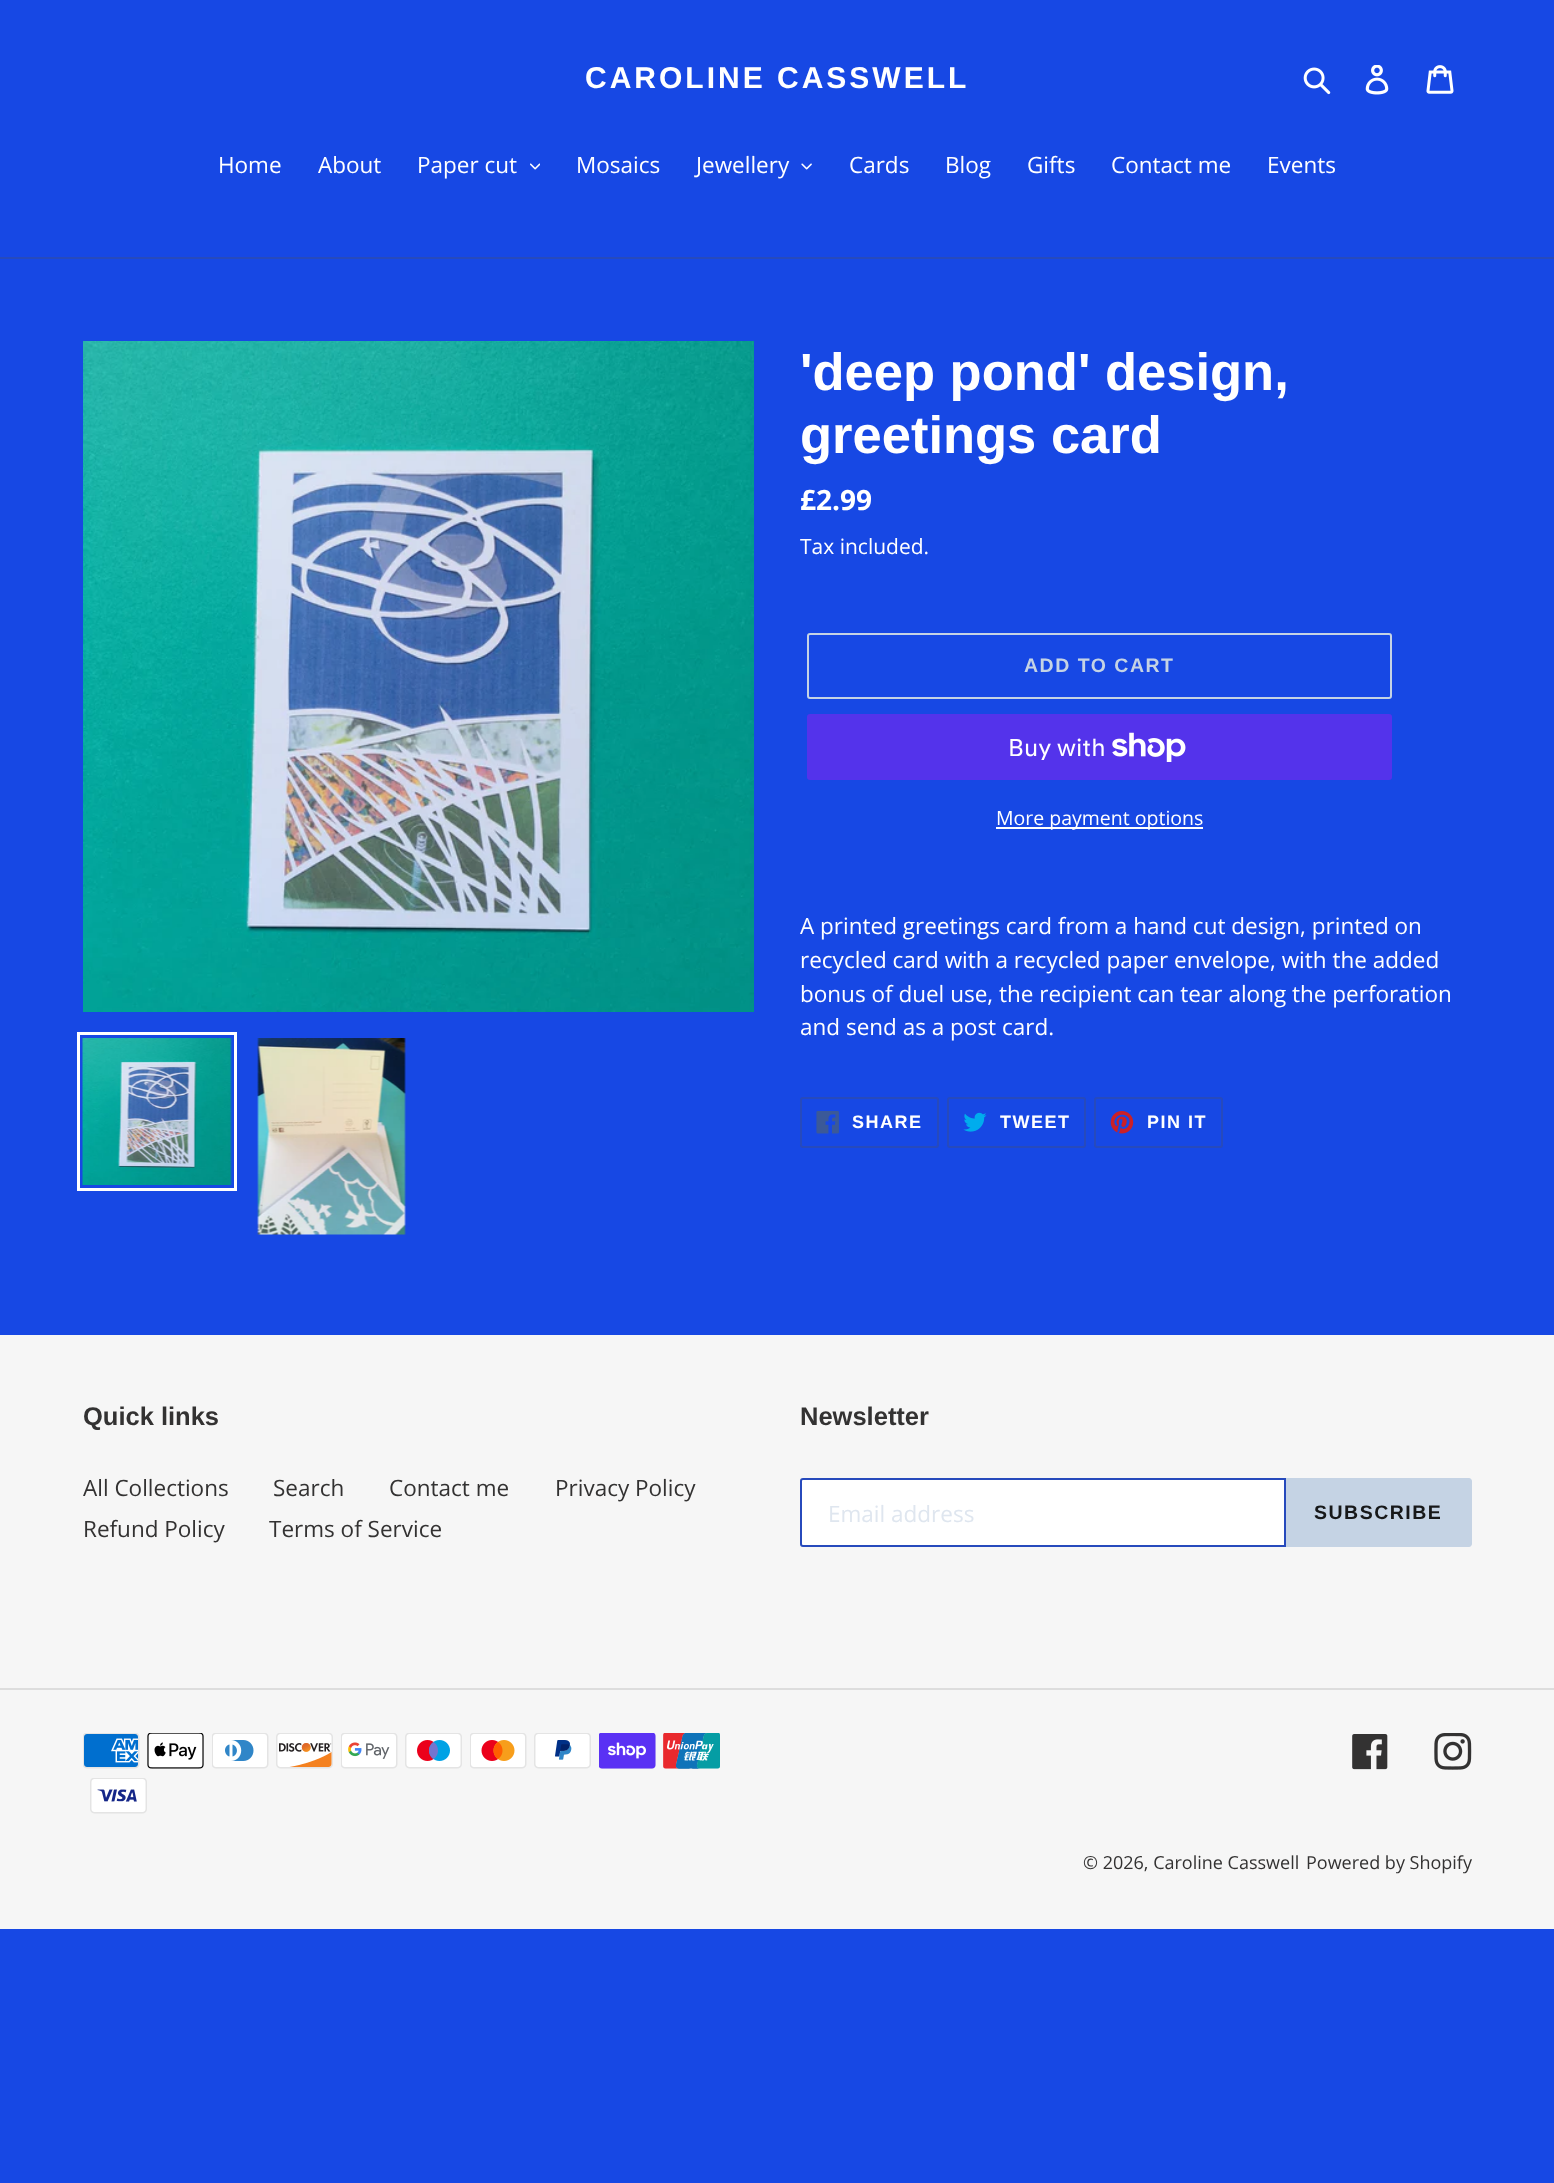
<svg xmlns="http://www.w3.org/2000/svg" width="1554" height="2183">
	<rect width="100%" height="100%" fill="#1748E4" />
	<text x="585" y="88" font-family="Liberation Sans" font-size="30" font-weight="700" letter-spacing="3" fill="#FFFFFF">CAROLINE CASSWELL</text>
	<image x="1303" y="67" width="28" height="28" href="assets/img1.png" />
	<image x="1365" y="65" width="24" height="30" href="assets/img2.png" />
	<image x="1426" y="65" width="28" height="29" href="assets/img3.png" />
	<rect x="0" y="257" width="1554" height="2" fill="#274ABC" />
	<g font-family="Open Sans" font-size="22.5" fill="#FFFFFF">
		<text x="218" y="173">Home</text>
		<text x="318" y="173">About</text>
		<text x="417" y="173">Paper cut</text>
	</g>
	<image x="530" y="163" width="10" height="7" href="assets/img4.png" />
	<g font-family="Open Sans" font-size="22.5" fill="#FFFFFF">
		<text x="576" y="173">Mosaics</text>
		<text x="696" y="173">Jewellery</text>
	</g>
	<image x="801" y="163" width="11" height="7" href="assets/img5.png" />
	<g font-family="Open Sans" font-size="22.5" fill="#FFFFFF">
		<text x="849" y="173">Cards</text>
		<text x="945" y="173">Blog</text>
		<text x="1027" y="173">Gifts</text>
		<text x="1111" y="173">Contact me</text>
		<text x="1267" y="173">Events</text>
	</g>
	<image x="83" y="341" width="671" height="671" href="assets/img6.png" />
	<rect x="78.5" y="1033.5" width="157" height="156" fill="none" stroke="#FFFFFF" stroke-width="3" />
	<image x="82" y="1038" width="150" height="147" href="assets/img7.png" />
	<image x="257" y="1038" width="149" height="197" href="assets/img8.png" />
	<g font-family="Liberation Sans" font-size="52.5" font-weight="700" fill="#FFFFFF">
		<text x="800" y="390">'deep pond' design,</text>
		<text x="800" y="453">greetings card</text>
	</g>
	<text x="800" y="510" font-family="Open Sans" font-size="28" font-weight="700" fill="#FFFFFF">£2.99</text>
	<text x="800" y="554" font-family="Open Sans" font-size="21" fill="#FFFFFF">Tax included.</text>
	<rect x="808" y="634" width="583" height="64" rx="2" fill="none" stroke="#C5D3E4" stroke-width="2" />
	<text x="1024" y="672" font-family="Liberation Sans" font-size="19.5" font-weight="700" letter-spacing="1.5" fill="#C5D3E4">ADD TO CART</text>
	<rect x="807" y="714" width="585" height="66" rx="3" fill="#5433EB" />
	<text x="1008" y="756" font-family="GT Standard" font-size="24" fill="#FFFFFF">Buy with</text>
	<image x="1112" y="732" width="74" height="30" href="assets/img9.png" />
	<rect x="996" y="827" width="207" height="2" fill="#FFFFFF" />
	<text x="996" y="825" font-family="Open Sans" font-size="19.5" fill="#FFFFFF">More payment options</text>
	<g font-family="Open Sans" font-size="22.5" fill="#FFFFFF">
		<text x="800" y="934">A printed greetings card from a hand cut design, printed on</text>
		<text x="800" y="968">recycled card with a recycled paper envelope, with the added</text>
		<text x="800" y="1002">bonus of duel use, the recipient can tear along the perforation</text>
		<text x="800" y="1035">and send as a post card.</text>
	</g>
	<rect x="801" y="1098" width="137" height="49" rx="2" fill="none" stroke="#274ABC" stroke-width="2" />
	<image x="816" y="1111" width="23" height="23" href="assets/img10.png" />
	<text x="852" y="1128" font-family="Liberation Sans" font-size="18" font-weight="700" letter-spacing="1.5" fill="#FFFFFF">SHARE</text>
	<rect x="948" y="1098" width="137" height="49" rx="2" fill="none" stroke="#274ABC" stroke-width="2" />
	<image x="963" y="1112" width="24" height="20" href="assets/img11.png" />
	<text x="1000" y="1128" font-family="Liberation Sans" font-size="18" font-weight="700" letter-spacing="1.5" fill="#FFFFFF">TWEET</text>
	<rect x="1095" y="1098" width="127" height="49" rx="2" fill="none" stroke="#274ABC" stroke-width="2" />
	<image x="1110" y="1111" width="24" height="23" href="assets/img12.png" />
	<text x="1147" y="1128" font-family="Liberation Sans" font-size="18" font-weight="700" letter-spacing="1.5" fill="#FFFFFF">PIN IT</text>
	<rect x="0" y="1335" width="1554" height="594" fill="#F6F6F6" />
	<text x="83" y="1425" font-family="Liberation Sans" font-size="25.5" font-weight="700" fill="#333232">Quick links</text>
	<g font-family="Open Sans" font-size="22.5" fill="#333232">
		<text x="83" y="1496">All Collections</text>
		<text x="273" y="1496">Search</text>
		<text x="389" y="1496">Contact me</text>
		<text x="555" y="1496">Privacy Policy</text>
		<text x="83" y="1537">Refund Policy</text>
		<text x="269" y="1537">Terms of Service</text>
	</g>
	<text x="800" y="1425" font-family="Liberation Sans" font-size="25.5" font-weight="700" fill="#333232">Newsletter</text>
	<path d="M803 1479H1285V1546H803C802 1546 801 1545 801 1544V1481C801 1480 802 1479 803 1479Z" fill="#FFFFFF" stroke="#274ABC" stroke-width="2" />
	<text x="828" y="1522" font-family="Open Sans" font-size="22.5" fill="#DFE6EF">Email address</text>
	<path d="M1286 1478H1469C1470.5 1478 1472 1479.5 1472 1481V1544C1472 1545.5 1470.5 1547 1469 1547H1286Z" fill="#C5D3E4" />
	<text x="1314" y="1519" font-family="Liberation Sans" font-size="19.5" font-weight="700" letter-spacing="1.5" fill="#171819">SUBSCRIBE</text>
	<rect x="0" y="1688" width="1554" height="2" fill="#DDDDDD" />
	<image x="83" y="1733" width="57" height="36" href="assets/img13.png" />
	<image x="147" y="1733" width="57" height="36" href="assets/img14.png" />
	<image x="212" y="1733" width="57" height="36" href="assets/img15.png" />
	<image x="276" y="1733" width="57" height="36" href="assets/img16.png" />
	<image x="341" y="1733" width="57" height="36" href="assets/img17.png" />
	<image x="405" y="1733" width="57" height="36" href="assets/img18.png" />
	<image x="470" y="1733" width="57" height="36" href="assets/img19.png" />
	<image x="534" y="1733" width="57" height="36" href="assets/img20.png" />
	<image x="599" y="1733" width="57" height="36" href="assets/img21.png" />
	<image x="663" y="1733" width="57" height="36" href="assets/img22.png" />
	<image x="90" y="1778" width="57" height="36" href="assets/img23.png" />
	<image x="1352" y="1734" width="36" height="36" href="assets/img24.png" />
	<image x="1434" y="1733" width="38" height="37" href="assets/img25.png" />
	<g font-family="Open Sans" font-size="18" fill="#333232">
		<text x="1083" y="1869">© 2026, Caroline Casswell</text>
		<text x="1306" y="1869">Powered by Shopify</text>
	</g>
</svg>
